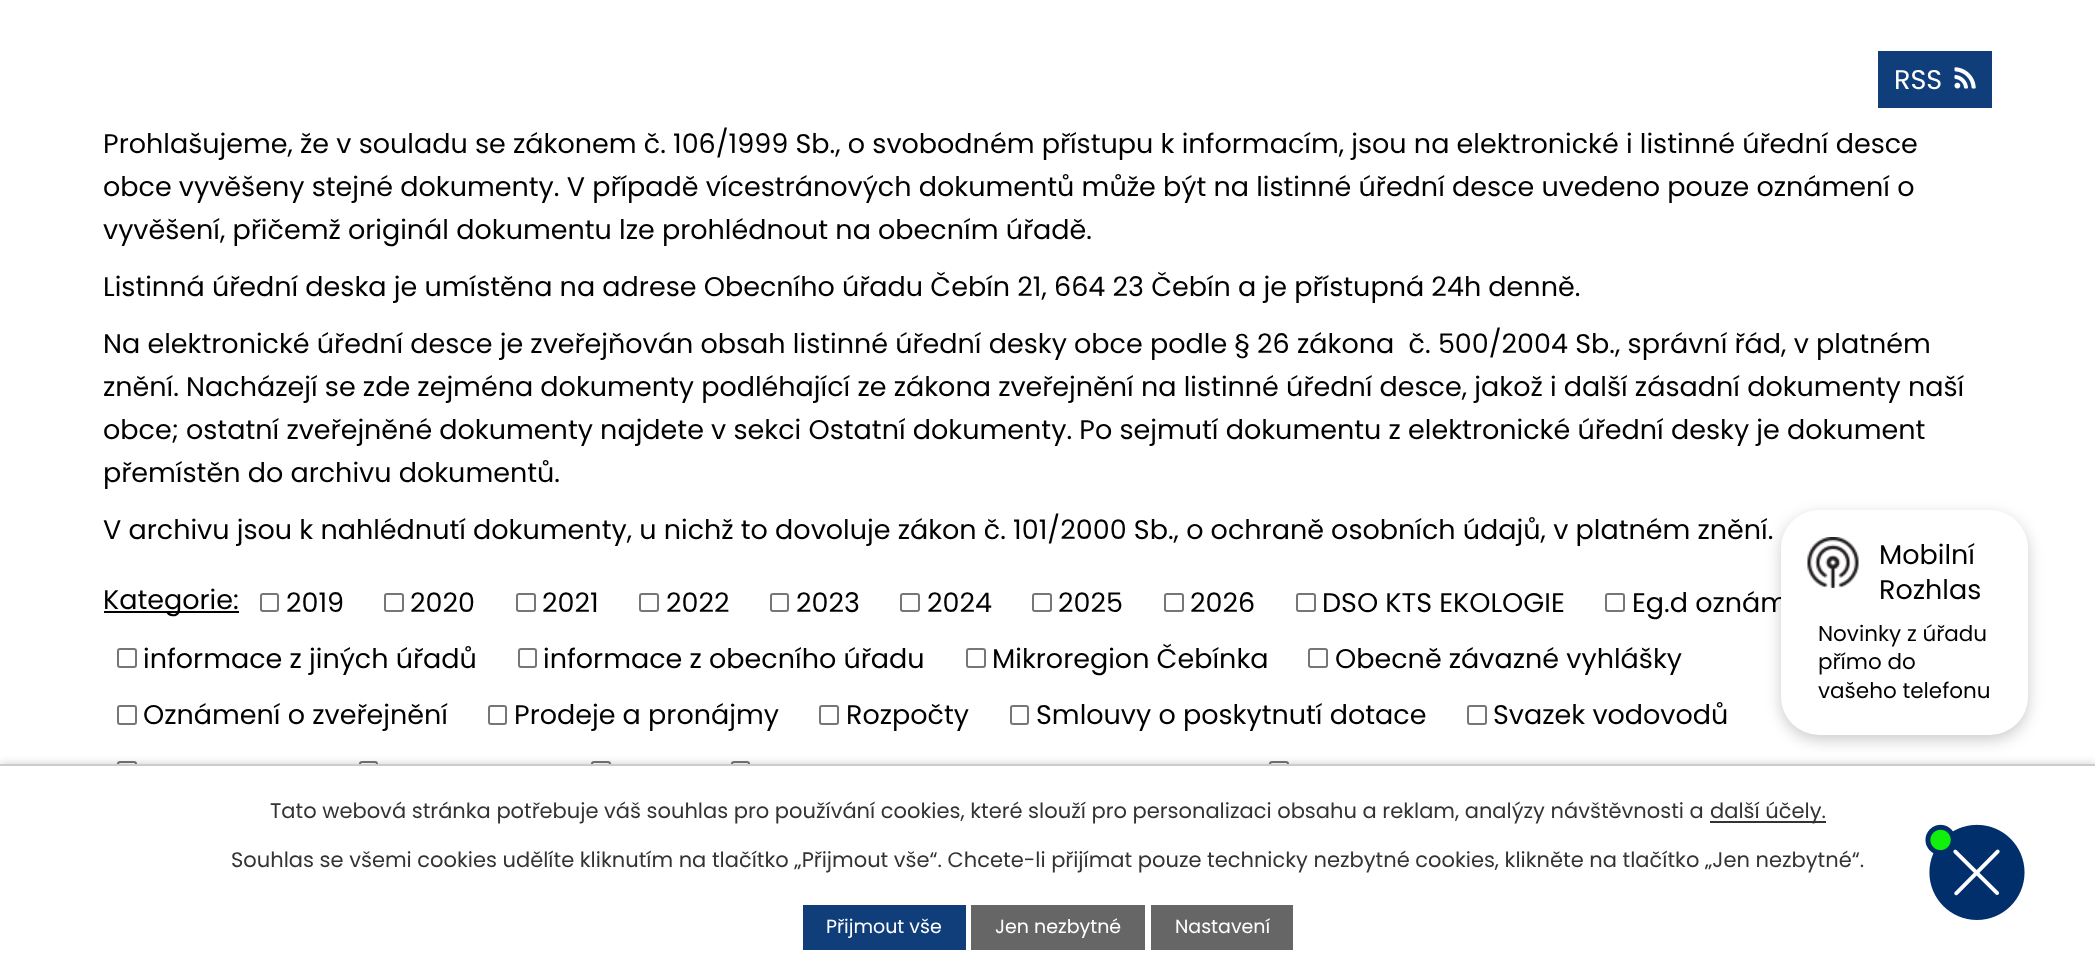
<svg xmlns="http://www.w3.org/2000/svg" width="2095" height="978">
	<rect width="100%" height="100%" fill="#FFFFFF" />
	<rect x="1878" y="51" width="114" height="57" fill="#103E7B" />
	<text x="1894" y="89" font-family="Poppins" font-size="27" fill="#FFFFFF">RSS</text>
	<image x="1954" y="67" width="22" height="22" href="assets/img1.png" />
	<g font-family="Poppins" font-size="27" fill="#000000">
		<text x="103" y="153">Prohlašujeme, že v souladu se zákonem č. 106/1999 Sb., o svobodném přístupu k informacím, jsou na elektronické i listinné úřední desce</text>
		<text x="103" y="196">obce vyvěšeny stejné dokumenty. V případě vícestránových dokumentů může být na listinné úřední desce uvedeno pouze oznámení o</text>
		<text x="103" y="239">vyvěšení, přičemž originál dokumentu lze prohlédnout na obecním úřadě.</text>
		<text x="103" y="296">Listinná úřední deska je umístěna na adrese Obecního úřadu Čebín 21, 664 23 Čebín a je přístupná 24h denně.</text>
		<text x="103" y="353" xml:space="preserve">Na elektronické úřední desce je zveřejňován obsah listinné úřední desky obce podle § 26 zákona  č. 500/2004 Sb., správní řád, v platném</text>
		<text x="103" y="396">znění. Nacházejí se zde zejména dokumenty podléhající ze zákona zveřejnění na listinné úřední desce, jakož i další zásadní dokumenty naší</text>
		<text x="103" y="439">obce; ostatní zveřejněné dokumenty najdete v sekci Ostatní dokumenty. Po sejmutí dokumentu z elektronické úřední desky je dokument</text>
		<text x="103" y="482">přemístěn do archivu dokumentů.</text>
		<text x="103" y="539">V archivu jsou k nahlédnutí dokumenty, u nichž to dovoluje zákon č. 101/2000 Sb., o ochraně osobních údajů, v platném znění.</text>
	</g>
	<rect x="104" y="611" width="135" height="2" fill="#000000" />
	<text x="103" y="609" font-family="Poppins" font-size="27" fill="#000000">Kategorie:</text>
	<rect x="261" y="594" width="17" height="17" rx="2" fill="none" stroke="#767676" stroke-width="2" />
	<text x="286" y="612" font-family="Poppins" font-size="27" fill="#000000">2019</text>
	<rect x="385" y="594" width="18" height="17" rx="2" fill="none" stroke="#767676" stroke-width="2" />
	<text x="410" y="612" font-family="Poppins" font-size="27" fill="#000000">2020</text>
	<rect x="517" y="594" width="18" height="17" rx="2" fill="none" stroke="#767676" stroke-width="2" />
	<text x="542" y="612" font-family="Poppins" font-size="27" fill="#000000">2021</text>
	<rect x="640" y="594" width="18" height="17" rx="2" fill="none" stroke="#767676" stroke-width="2" />
	<text x="666" y="612" font-family="Poppins" font-size="27" fill="#000000">2022</text>
	<rect x="771" y="594" width="17" height="17" rx="2" fill="none" stroke="#767676" stroke-width="2" />
	<text x="796" y="612" font-family="Poppins" font-size="27" fill="#000000">2023</text>
	<rect x="901" y="594" width="18" height="17" rx="2" fill="none" stroke="#767676" stroke-width="2" />
	<text x="927" y="612" font-family="Poppins" font-size="27" fill="#000000">2024</text>
	<rect x="1033" y="594" width="18" height="17" rx="2" fill="none" stroke="#767676" stroke-width="2" />
	<text x="1058" y="612" font-family="Poppins" font-size="27" fill="#000000">2025</text>
	<rect x="1165" y="594" width="18" height="17" rx="2" fill="none" stroke="#767676" stroke-width="2" />
	<text x="1190" y="612" font-family="Poppins" font-size="27" fill="#000000">2026</text>
	<rect x="1297" y="594" width="18" height="17" rx="2" fill="none" stroke="#767676" stroke-width="2" />
	<text x="1322" y="612" font-family="Poppins" font-size="27" fill="#000000">DSO KTS EKOLOGIE</text>
	<rect x="1606" y="594" width="18" height="17" rx="2" fill="none" stroke="#767676" stroke-width="2" />
	<text x="1632" y="612" font-family="Poppins" font-size="27" fill="#000000">Eg.d oznám</text>
	<rect x="118" y="649" width="18" height="18" rx="2" fill="none" stroke="#767676" stroke-width="2" />
	<text x="143" y="668" font-family="Poppins" font-size="27" fill="#000000">informace z jiných úřadů</text>
	<rect x="519" y="649" width="17" height="18" rx="2" fill="none" stroke="#767676" stroke-width="2" />
	<text x="543" y="668" font-family="Poppins" font-size="27" fill="#000000">informace z obecního úřadu</text>
	<rect x="967" y="649" width="18" height="18" rx="2" fill="none" stroke="#767676" stroke-width="2" />
	<text x="992" y="668" font-family="Poppins" font-size="27" fill="#000000">Mikroregion Čebínka</text>
	<rect x="1309" y="649" width="18" height="18" rx="2" fill="none" stroke="#767676" stroke-width="2" />
	<text x="1335" y="668" font-family="Poppins" font-size="27" fill="#000000">Obecně závazné vyhlášky</text>
	<rect x="118" y="706" width="18" height="18" rx="2" fill="none" stroke="#767676" stroke-width="2" />
	<text x="143" y="724" font-family="Poppins" font-size="27" fill="#000000">Oznámení o zveřejnění</text>
	<rect x="489" y="706" width="17" height="18" rx="2" fill="none" stroke="#767676" stroke-width="2" />
	<text x="514" y="724" font-family="Poppins" font-size="27" fill="#000000">Prodeje a pronájmy</text>
	<rect x="820" y="706" width="18" height="18" rx="2" fill="none" stroke="#767676" stroke-width="2" />
	<text x="846" y="724" font-family="Poppins" font-size="27" fill="#000000">Rozpočty</text>
	<rect x="1011" y="706" width="17" height="18" rx="2" fill="none" stroke="#767676" stroke-width="2" />
	<text x="1036" y="724" font-family="Poppins" font-size="27" fill="#000000">Smlouvy o poskytnutí dotace</text>
	<rect x="1468" y="706" width="18" height="18" rx="2" fill="none" stroke="#767676" stroke-width="2" />
	<text x="1493" y="724" font-family="Poppins" font-size="27" fill="#000000">Svazek vodovodů</text>
	<rect x="118" y="762" width="18" height="17" rx="2" fill="none" stroke="#767676" stroke-width="2" />
	<rect x="360" y="762" width="17" height="17" rx="2" fill="none" stroke="#767676" stroke-width="2" />
	<rect x="592" y="762" width="18" height="17" rx="2" fill="none" stroke="#767676" stroke-width="2" />
	<rect x="732" y="762" width="17" height="17" rx="2" fill="none" stroke="#767676" stroke-width="2" />
	<rect x="1270" y="762" width="18" height="17" rx="2" fill="none" stroke="#767676" stroke-width="2" />
	<rect x="1781" y="515" width="247" height="225" rx="38" fill="#000000" fill-opacity="0.2" filter="blur(7.5px)" />
	<rect x="1781" y="510" width="247" height="225" rx="38" fill="#FFFFFF" />
	<image x="1807" y="537" width="52" height="51" href="assets/img2.png" />
	<g font-family="Poppins" font-size="27" fill="#000000">
		<text x="1879" y="564">Mobilní</text>
		<text x="1879" y="599">Rozhlas</text>
	</g>
	<g font-family="Poppins" font-size="21.5" fill="#000000">
		<text x="1818" y="641">Novinky z úřadu</text>
		<text x="1818" y="669">přímo do</text>
		<text x="1818" y="698">vašeho telefonu</text>
	</g>
	<rect x="0" y="764" width="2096" height="214" fill="#000000" fill-opacity="0.2" filter="blur(4px)" />
	<rect x="0" y="766" width="2095" height="212" fill="#FFFFFF" />
	<image x="1925" y="824" width="100" height="96" href="assets/img3.png" />
	<rect x="0" y="764" width="2095" height="2" fill="#CCCCCC" />
	<text x="270" y="818" font-family="Poppins" font-size="21" fill="#333333">Tato webová stránka potřebuje váš souhlas pro používání cookies, které slouží pro personalizaci obsahu a reklam, analýzy návštěvnosti a</text>
	<rect x="1710" y="821" width="116" height="2" fill="#333333" />
	<g font-family="Poppins" font-size="21" fill="#333333">
		<text x="1710" y="818">další účely.</text>
		<text x="231" y="867">Souhlas se všemi cookies udělíte kliknutím na tlačítko „Přijmout vše“. Chcete-li přijímat pouze technicky nezbytné cookies, klikněte na tlačítko „Jen nezbytné“.</text>
	</g>
	<rect x="803" y="905" width="163" height="45" fill="#103E7B" />
	<text x="826" y="933" font-family="Poppins" font-size="19" fill="#FFFFFF">Přijmout vše</text>
	<rect x="971" y="905" width="174" height="45" fill="#666666" />
	<text x="995" y="933" font-family="Poppins" font-size="19" fill="#FFFFFF">Jen nezbytné</text>
	<rect x="1151" y="905" width="142" height="45" fill="#666666" />
	<text x="1175" y="933" font-family="Poppins" font-size="19" fill="#FFFFFF">Nastavení</text>
</svg>
